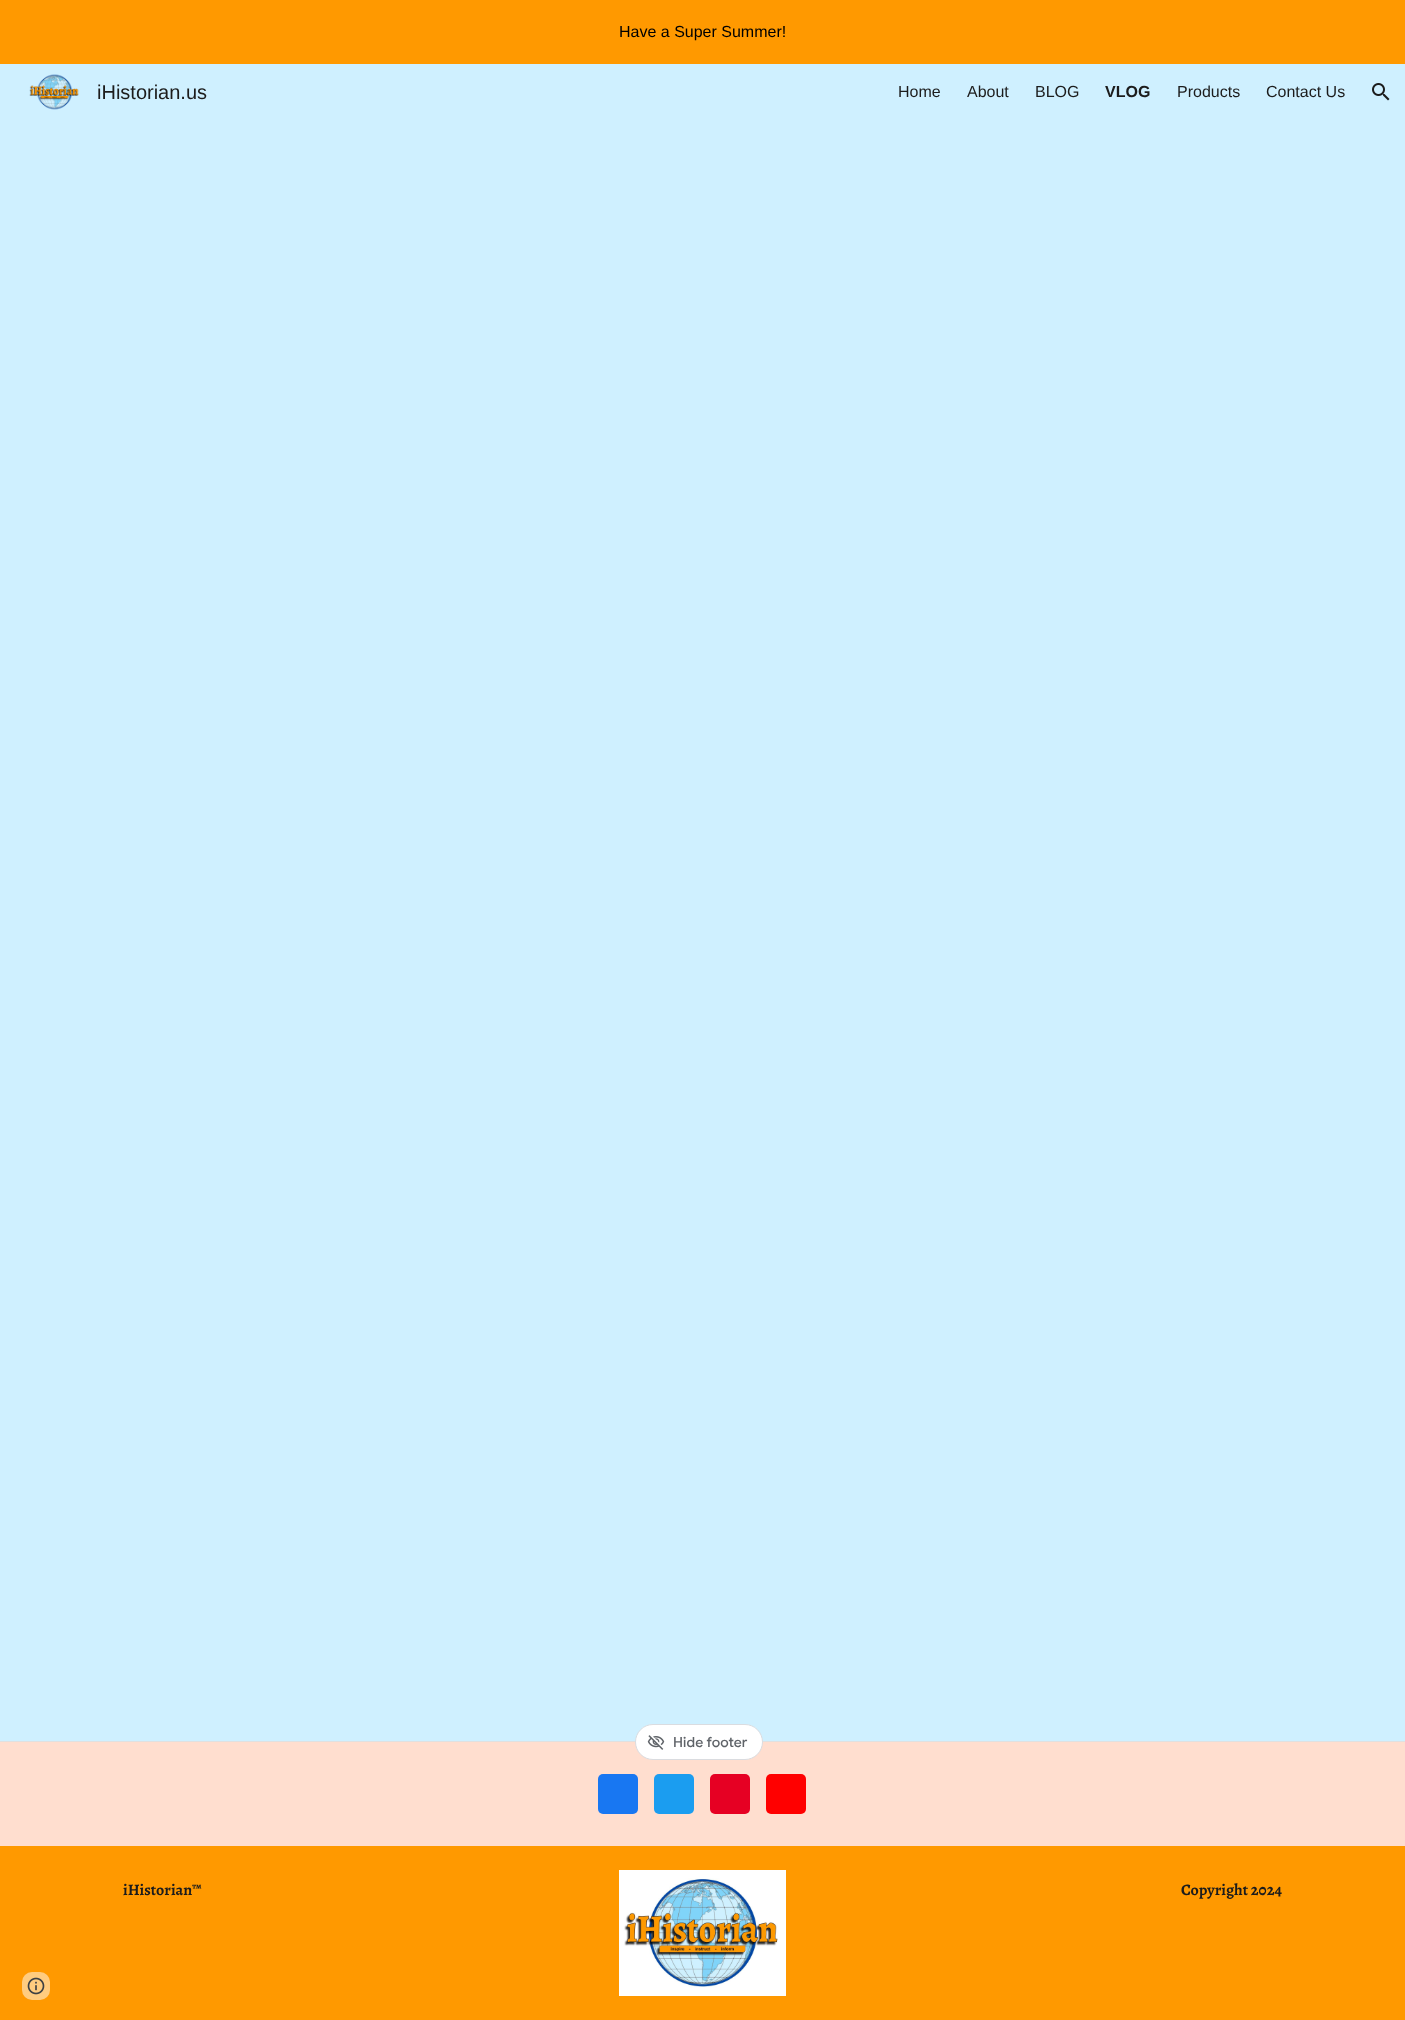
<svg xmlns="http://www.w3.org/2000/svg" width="1405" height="2020">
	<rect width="100%" height="100%" fill="#CFF0FF" />
	<rect x="0" y="0" width="1405" height="64" fill="#FF9900" />
	<text x="619" y="37" font-family="Liberation Sans" font-size="16" fill="#000000">Have a Super Summer!</text>
	<image x="29" y="74" width="50" height="36" href="assets/img1.png" />
	<text x="97" y="99" font-family="Liberation Sans" font-size="20" fill="#1C1C1C">iHistorian.us</text>
	<g font-family="Liberation Sans" font-size="16" fill="#1C1C1C">
		<text x="898" y="97">Home</text>
		<text x="967" y="97">About</text>
		<text x="1035" y="97">BLOG</text>
	</g>
	<text x="1105" y="97" font-family="Liberation Sans" font-size="16" font-weight="700" fill="#1C1C1C">VLOG</text>
	<g font-family="Liberation Sans" font-size="16" fill="#1C1C1C">
		<text x="1177" y="97">Products</text>
		<text x="1266" y="97">Contact Us</text>
	</g>
	<image x="1372" y="83" width="18" height="18" href="assets/img2.png" />
	<rect x="0" y="1741" width="1405" height="1" fill="#E0E0E0" />
	<rect x="0" y="1742" width="1405" height="104" fill="#FFDECF" />
	<rect x="635.5" y="1724.5" width="127" height="35" rx="17.5" fill="#FFFFFF" stroke="#DADCE0" />
	<image x="647" y="1735" width="18" height="15" href="assets/img3.png" />
	<text x="673" y="1747" font-family="Google Sans" font-size="14" font-weight="500" letter-spacing="0.1" fill="#5F6368">Hide footer</text>
	<rect x="598" y="1774" width="40" height="40" rx="5" fill="#1877F2" />
	<rect x="654" y="1774" width="40" height="40" rx="5" fill="#1B9DF0" />
	<rect x="710" y="1774" width="40" height="40" rx="5" fill="#E60023" />
	<rect x="766" y="1774" width="40" height="40" rx="5" fill="#FF0000" />
	<rect x="0" y="1846" width="1405" height="174" fill="#FF9900" />
	<text x="123" y="1895" font-family="Alegreya" font-size="16" font-weight="700" fill="#1C1C1C">iHistorian™</text>
	<image x="619" y="1870" width="167" height="126" href="assets/img4.png" />
	<text x="1181" y="1895" font-family="Alegreya" font-size="16" font-weight="700" fill="#1C1C1C">Copyright 2024</text>
	<rect x="22" y="1972" width="28" height="28" rx="10" fill="#FFCC80" />
	<image x="27" y="1977" width="18" height="18" href="assets/img5.png" />
</svg>
